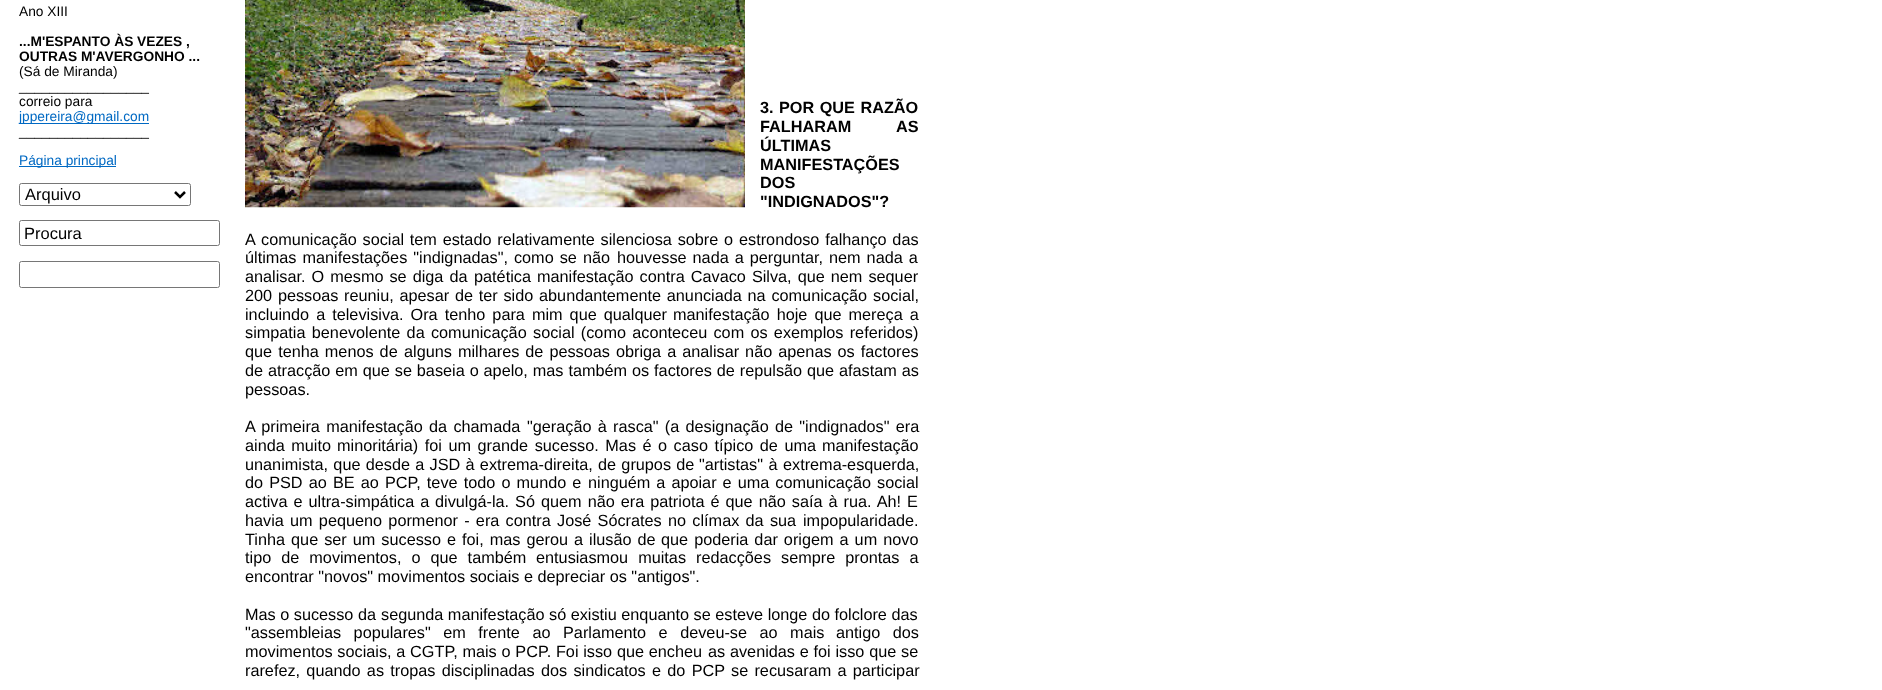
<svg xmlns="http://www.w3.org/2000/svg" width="1882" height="690">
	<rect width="100%" height="100%" fill="#FFFFFF" />
	<text x="19" y="16" font-family="Liberation Sans" font-size="13.75" fill="#000000">Ano XIII</text>
	<g font-family="Liberation Sans" font-size="13.75" font-weight="700" fill="#000000">
		<text x="19" y="46">...M'ESPANTO ÀS VEZES ,</text>
		<text x="19" y="61">OUTRAS M'AVERGONHO ...</text>
	</g>
	<g font-family="Liberation Sans" font-size="13.75" fill="#000000">
		<text x="19" y="76">(Sá de Miranda)</text>
		<text x="19" y="91">_________________</text>
		<text x="19" y="106">correio para</text>
	</g>
	<rect x="19" y="123" width="130" height="1" fill="#0069C3" />
	<text x="19" y="121" font-family="Liberation Sans" font-size="13.75" fill="#0069C3">jppereira@gmail.com</text>
	<text x="19" y="136" font-family="Liberation Sans" font-size="13.75" fill="#000000">_________________</text>
	<rect x="19" y="166" width="97" height="1" fill="#0069C3" />
	<text x="19" y="165" font-family="Liberation Sans" font-size="13.75" fill="#0069C3">Página principal</text>
	<rect x="19.5" y="183.5" width="171" height="22" rx="2" fill="none" stroke="#767676" />
	<path d="M175 192L180 197L185 192" fill="none" stroke="#000000" stroke-width="2.5" />
	<text x="25" y="200" font-family="Liberation Sans" font-size="16.5" fill="#000000">Arquivo</text>
	<rect x="19.5" y="220.5" width="200" height="25" rx="2" fill="none" stroke="#767676" />
	<text x="24" y="239" font-family="Liberation Sans" font-size="16.5" fill="#000000">Procura</text>
	<rect x="19.5" y="261.5" width="200" height="26" rx="2" fill="none" stroke="#767676" />
	<image x="245" y="0" width="500" height="208" href="assets/img1.png" />
	<g font-family="Liberation Sans" font-size="16.25" font-weight="700" fill="#000000">
		<text x="760" y="113">3.</text>
		<text x="779" y="113" word-spacing="1">POR QUE RAZÃO</text>
		<text x="760" y="132" word-spacing="41">FALHARAM AS</text>
		<text x="760" y="151">ÚLTIMAS</text>
		<text x="760" y="170">MANIFESTAÇÕES</text>
		<text x="760" y="188">DOS</text>
		<text x="760" y="207">"INDIGNADOS"?</text>
	</g>
	<g font-family="Liberation Sans" font-size="16.25" fill="#000000">
		<text x="245" y="245">A</text>
		<text x="261" y="245" word-spacing="1.25">comunicação social tem estado relativamente silenciosa sobre o</text>
		<text x="739" y="245" word-spacing="1.25">estrondoso falhanço das</text>
		<text x="245" y="263" word-spacing="1.5">últimas manifestações "indignadas", como se não</text>
		<text x="617" y="263" word-spacing="1.5">houvesse nada a perguntar, nem nada a</text>
		<text x="245" y="282" word-spacing="1.5">analisar. O mesmo se diga da</text>
		<text x="474" y="282" word-spacing="1.5">patética manifestação contra Cavaco Silva, que nem sequer</text>
		<text x="245" y="301" word-spacing="1.25">200 pessoas</text>
		<text x="344" y="301" word-spacing="1.25">reuniu, apesar de ter sido abundantemente anunciada na comunicação</text>
		<text x="873" y="301">social,</text>
		<text x="245" y="320" word-spacing="2.5">incluindo a televisiva. Ora tenho para mim que qualquer</text>
		<text x="673" y="320" word-spacing="2.5">manifestação hoje que mereça a</text>
		<text x="245" y="338" word-spacing="1.75">simpatia benevolente da comunicação</text>
		<text x="533" y="338" word-spacing="1.75">social (como aconteceu com os exemplos referidos)</text>
		<text x="245" y="357" word-spacing="1.5">que tenha menos de</text>
		<text x="404" y="357" word-spacing="1.5">alguns milhares de pessoas obriga a analisar não apenas os factores</text>
		<text x="245" y="376">de</text>
		<text x="268" y="376" word-spacing="0.4">atracção em que se baseia o apelo, mas também os factores de repulsão</text>
		<text x="807" y="376" word-spacing="0.4">que afastam as</text>
		<text x="245" y="395">pessoas.</text>
		<text x="245" y="432" word-spacing="1.75">A primeira manifestação da chamada</text>
		<text x="527" y="432" word-spacing="1.75">"geração à rasca" (a designação de "indignados" era</text>
		<text x="245" y="451" word-spacing="2">ainda muito</text>
		<text x="337" y="451" word-spacing="2">minoritária) foi um grande sucesso. Mas é o caso típico de uma</text>
		<text x="822" y="451">manifestação</text>
		<text x="245" y="470" word-spacing="0.75">unanimista, que desde a JSD à extrema-direita, de grupos de</text>
		<text x="699" y="470" word-spacing="1">"artistas" à extrema-esquerda,</text>
		<text x="245" y="488" word-spacing="1.6">do PSD ao BE ao PCP, teve todo o mundo e</text>
		<text x="588" y="488" word-spacing="1.5">ninguém a apoiar e uma comunicação social</text>
		<text x="245" y="507" word-spacing="1.5">activa e ultra-simpática a</text>
		<text x="435" y="507" word-spacing="1.5">divulgá-la. Só quem não era patriota é que não saía à rua. Ah! E</text>
		<text x="245" y="526">havia</text>
		<text x="290" y="526" word-spacing="1.75">um pequeno pormenor - era contra José Sócrates no clímax da sua</text>
		<text x="803" y="526">impopularidade.</text>
		<text x="245" y="545" word-spacing="1.5">Tinha que ser um sucesso e foi, mas gerou a ilusão de</text>
		<text x="661" y="545" word-spacing="1.5">que poderia dar origem a um novo</text>
		<text x="245" y="563" word-spacing="5.5">tipo de movimentos, o que também</text>
		<text x="536" y="563" word-spacing="5.5">entusiasmou muitas redacções sempre prontas a</text>
		<text x="245" y="582">encontrar "novos" movimentos sociais e depreciar os "antigos".</text>
		<text x="245" y="620">Mas o sucesso da</text>
		<text x="381" y="620">segunda manifestação só existiu enquanto se esteve longe do folclore das</text>
		<text x="245" y="638" word-spacing="8">"assembleias populares" em frente ao Parlamento e deveu-se ao mais</text>
		<text x="836" y="638" word-spacing="8">antigo dos</text>
		<text x="245" y="657" word-spacing="0.25">movimentos sociais, a CGTP, mais o PCP. Foi isso que encheu</text>
		<text x="708" y="657" word-spacing="0.25">as avenidas e foi isso que se</text>
		<text x="245" y="676" word-spacing="1.75">rarefez, quando as tropas disciplinadas</text>
		<text x="541" y="676" word-spacing="1.75">dos sindicatos e do PCP se recusaram a participar</text>
	</g>
</svg>
